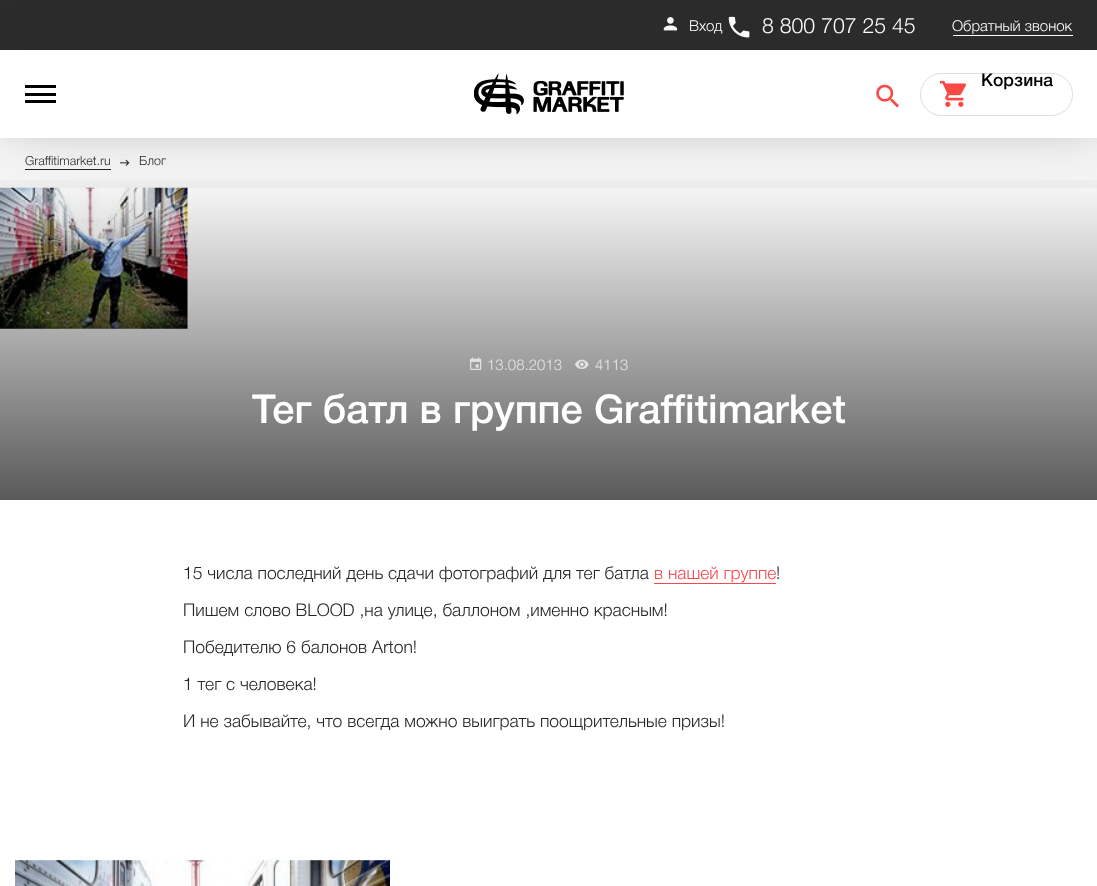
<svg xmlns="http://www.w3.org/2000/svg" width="1097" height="886">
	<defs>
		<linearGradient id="g1" gradientUnits="userSpaceOnUse" x1="549" y1="169" x2="549" y2="500"><stop offset="0" stop-color="#000000" stop-opacity="0" /><stop offset="1" stop-color="#000000" stop-opacity="0.65" /></linearGradient>
	</defs>
	<rect width="100%" height="100%" fill="#FFFFFF" />
	<rect x="0" y="138" width="1097" height="50" fill="#F5F5F5" />
	<rect x="25" y="169" width="86" height="1" fill="#262626" />
	<image x="120" y="159" width="10" height="7" href="assets/img6.png" />
	<rect x="0" y="-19" width="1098" height="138" fill="#000000" fill-opacity="0.3" filter="blur(19px)" />
	<rect x="0" y="0" width="1097" height="50" fill="#2C2C2C" />
	<image x="663" y="17" width="15" height="14" href="assets/img1.png" />
	<text x="689" y="31" font-family="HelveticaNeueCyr" font-size="15" font-weight="300" fill="#FFFFFF">Вход</text>
	<image x="728" y="16" width="22" height="22" href="assets/img2.png" />
	<text x="762" y="33" font-family="HelveticaNeueCyr" font-size="21.25" font-weight="300" fill="#FFFFFF">8 800 707 25 45</text>
	<rect x="953" y="35" width="120" height="1" fill="#FFFFFF" />
	<text x="952" y="31" font-family="HelveticaNeueCyr" font-size="15" font-weight="300" fill="#FFFFFF">Обратный звонок</text>
	<image x="0" y="187" width="188" height="142" href="assets/img7.png" />
	<rect x="0" y="180" width="1097" height="320" fill="url(#g1)" />
	<rect x="6" y="56" width="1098" height="88" fill="#000000" fill-opacity="0.07" filter="blur(34px)" />
	<rect x="0" y="50" width="1097" height="88" fill="#FFFFFF" />
	<image x="474" y="73" width="150" height="42" href="assets/img3.png" />
	<rect x="920.5" y="73.5" width="152" height="42" rx="21" fill="none" stroke="#DDDDDD" />
	<image x="940" y="80" width="26" height="27" href="assets/img4.png" />
	<text x="981" y="86" font-family="HelveticaNeueCyr" font-size="17.5" font-weight="500" fill="#000000">Корзина</text>
	<image x="876" y="84" width="23" height="24" href="assets/img5.png" />
	<rect x="25" y="85" width="31" height="3" fill="#000000" />
	<rect x="25" y="93" width="31" height="3" fill="#000000" />
	<rect x="25" y="100" width="31" height="3" fill="#000000" />
	<g font-family="HelveticaNeueCyr" font-size="12.5" font-weight="300" fill="#262626">
		<text x="25" y="165">Graffitimarket.ru</text>
		<text x="139" y="165">Блог</text>
	</g>
	<image x="470" y="357" width="12" height="13" href="assets/img8.png" />
	<text x="487" y="370" font-family="HelveticaNeueCyr" font-size="15" font-weight="300" fill="#E2E2E2">13.08.2013</text>
	<image x="575" y="359" width="14" height="10" href="assets/img9.png" />
	<text x="595" y="370" font-family="HelveticaNeueCyr" font-size="15" font-weight="300" fill="#E2E2E2">4113</text>
	<text x="252" y="423" font-family="HelveticaNeueCyr" font-size="40" font-weight="500" fill="#FFFFFF">Тег батл в группе Graffitimarket</text>
	<text x="183" y="579" font-family="HelveticaNeueCyr" font-size="17.5" font-weight="300" fill="#262626">15 числа последний день сдачи фотографий для тег батла</text>
	<text x="654" y="579" font-family="HelveticaNeueCyr" font-size="17.5" font-weight="300" fill="#F8484E">в нашей группе</text>
	<rect x="654" y="583" width="122" height="1" fill="#F8484E" />
	<g font-family="HelveticaNeueCyr" font-size="17.5" font-weight="300" fill="#262626">
		<text x="776" y="579">!</text>
		<text x="183" y="616">Пишем слово BLOOD ,на улице, баллоном ,именно красным!</text>
		<text x="183" y="653">Победителю 6 балонов Arton!</text>
		<text x="183" y="690">1 тег с человека!</text>
		<text x="183" y="727">И не забывайте, что всегда можно выиграть поощрительные призы!</text>
	</g>
	<image x="15" y="860" width="375" height="26" href="assets/img10.png" />
</svg>
